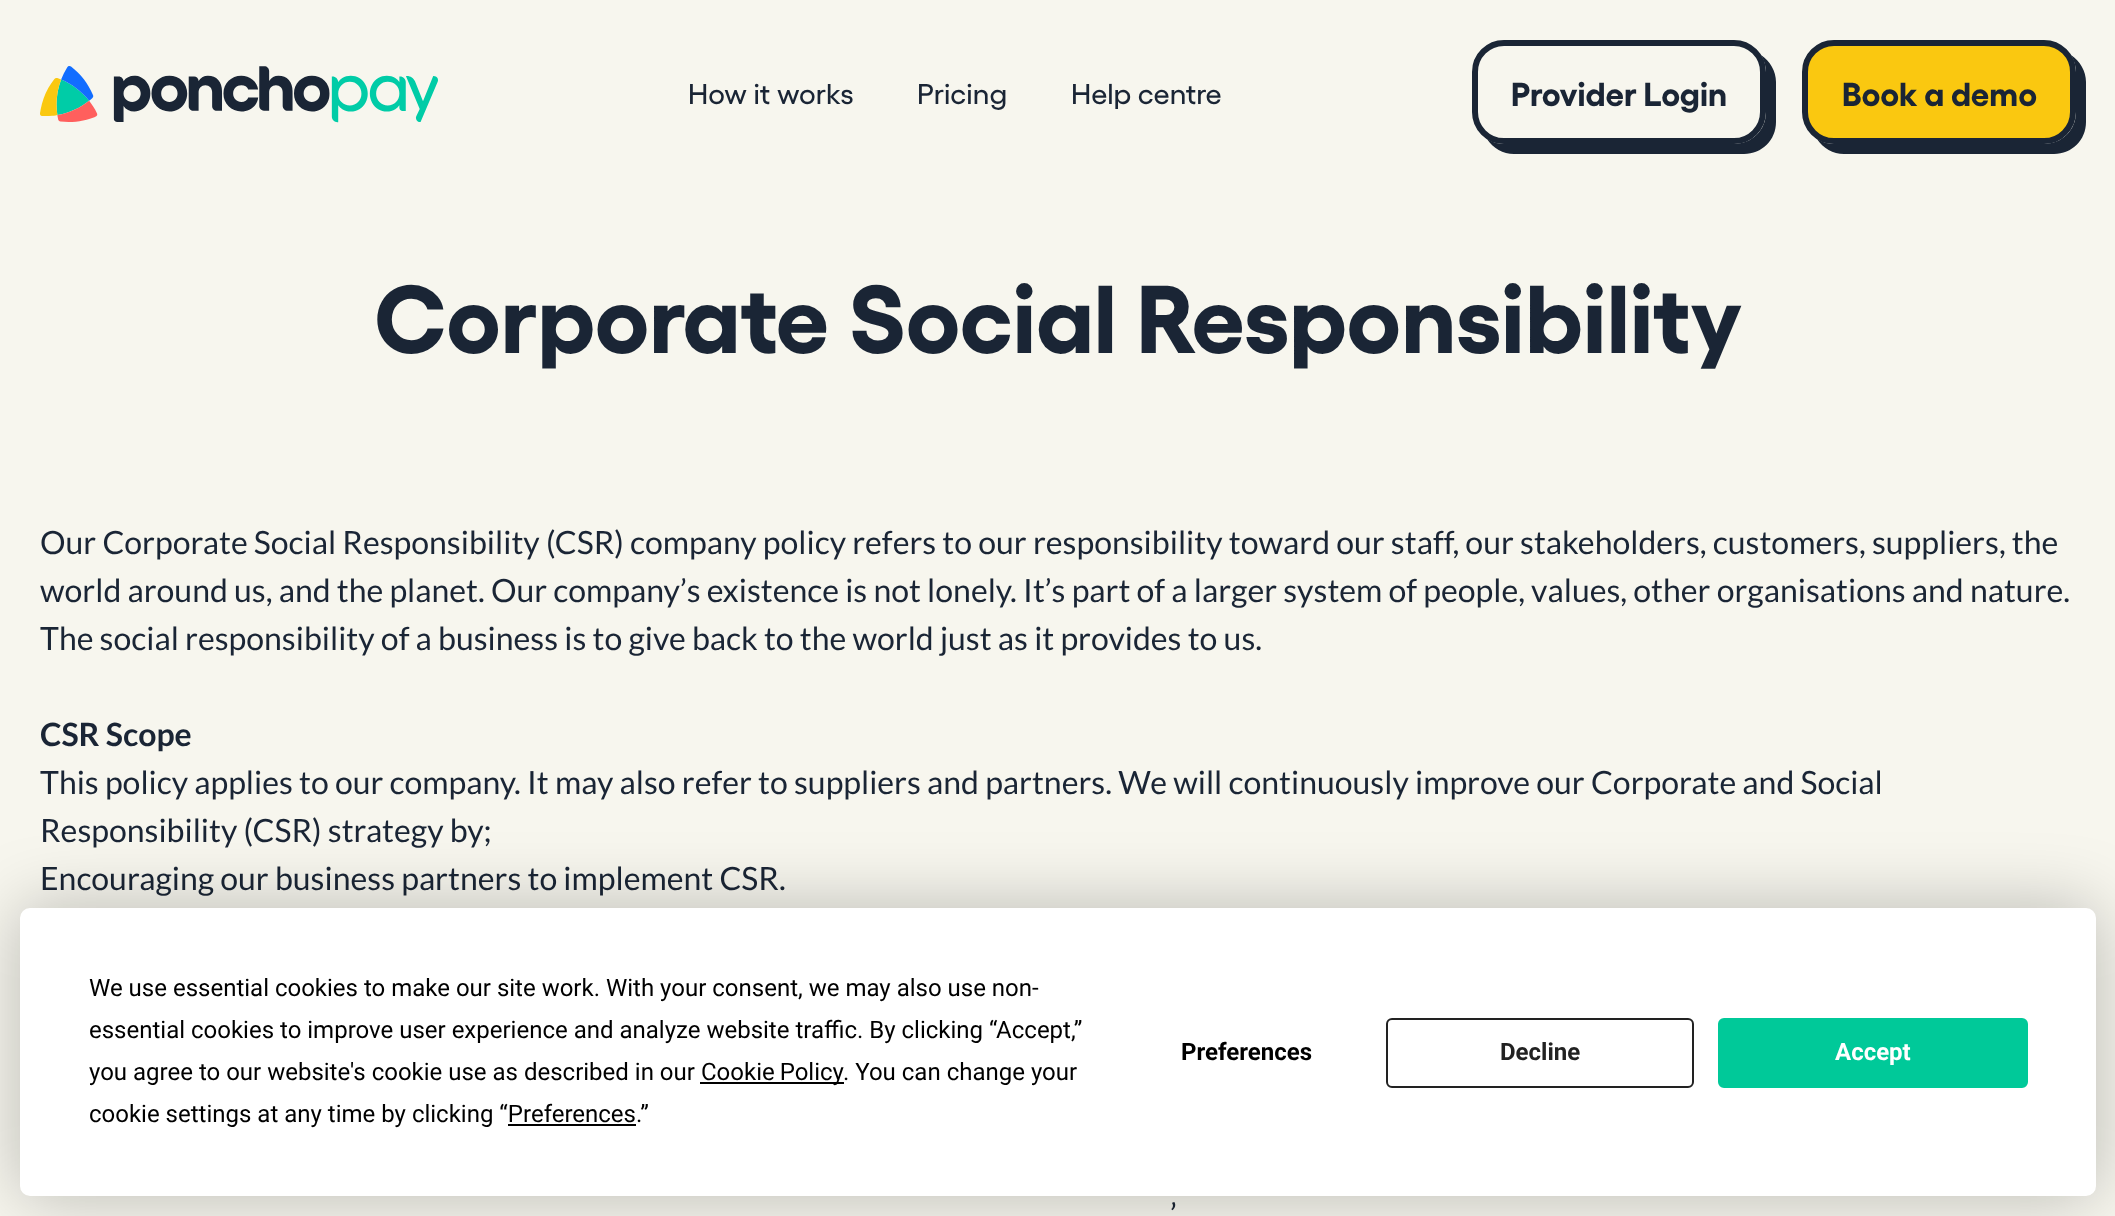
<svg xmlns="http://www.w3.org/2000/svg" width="2115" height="1216">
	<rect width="100%" height="100%" fill="#F7F6EE" />
	<image x="40" y="66" width="398" height="57" href="assets/img1.png" />
	<g font-family="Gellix" font-size="28.75" font-weight="500" fill="#1A2535">
		<text x="688" y="104">How it works</text>
		<text x="917" y="104">Pricing</text>
		<text x="1071" y="104">Help centre</text>
	</g>
	<path d="M1487 139C1493 148 1503 154 1514 154H1744C1762 154 1776 140 1776 122V82C1776 71 1770 61 1761 55C1764 60 1766 66 1766 72V112C1766 130 1752 144 1734 144H1504C1498 144 1492 142 1487 139Z" fill="#1A2535" />
	<rect x="1475" y="43" width="288" height="98" rx="29" fill="#F7F6EE" stroke="#1A2535" stroke-width="6" />
	<text x="1511" y="106" font-family="Gellix" font-size="33.25" font-weight="700" fill="#1A2535">Provider Login</text>
	<path d="M1817 139C1823 148 1833 154 1844 154H2054C2072 154 2086 140 2086 122V82C2086 71 2080 61 2071 55C2074 60 2076 66 2076 72V112C2076 130 2062 144 2044 144H1834C1828 144 1822 142 1817 139Z" fill="#1A2535" />
	<rect x="1805" y="43" width="268" height="98" rx="29" fill="#FAC810" stroke="#1A2535" stroke-width="6" />
	<text x="1842" y="106" font-family="Gellix" font-size="33.25" font-weight="700" fill="#1A2535">Book a demo</text>
	<text x="374" y="353" font-family="Gellix" font-size="96" font-weight="700" fill="#1A2535">Corporate Social Responsibility</text>
	<g font-family="Lato" font-size="32" fill="#1A2535">
		<text x="40" y="554">Our Corporate Social Responsibility (CSR) company policy refers to our responsibility toward our staff, our stakeholders, customers, suppliers, the</text>
		<text x="40" y="602">world around us, and the planet. Our company’s existence is not lonely. It’s part of a larger system of people, values, other organisations and nature.</text>
		<text x="40" y="650">The social responsibility of a business is to give back to the world just as it provides to us.</text>
	</g>
	<text x="40" y="746" font-family="Lato" font-size="32" font-weight="700" fill="#1A2535">CSR Scope</text>
	<g font-family="Lato" font-size="32" fill="#1A2535">
		<text x="40" y="794">This policy applies to our company. It may also refer to suppliers and partners. We will continuously improve our Corporate and Social</text>
		<text x="40" y="842">Responsibility (CSR) strategy by;</text>
		<text x="40" y="890">Encouraging our business partners to implement CSR.</text>
		<text x="1170" y="1226">’</text>
	</g>
	<rect x="20" y="908" width="2076" height="288" rx="10" fill="#000000" fill-opacity="0.25" filter="blur(35px)" />
	<rect x="20" y="908" width="2076" height="288" rx="10" fill="#FFFFFF" />
	<g font-family="Roboto" font-size="24" fill="#000000">
		<text x="89" y="996">We use essential cookies to make our site work. With your consent, we may also use non-</text>
		<text x="89" y="1038">essential cookies to improve user experience and analyze website traffic. By clicking “Accept,”</text>
		<text x="89" y="1080">you agree to our website's cookie use as described in our</text>
	</g>
	<rect x="700" y="1082" width="144" height="2" fill="#000000" />
	<g font-family="Roboto" font-size="24" fill="#000000">
		<text x="701" y="1080" word-spacing="-1">Cookie Policy</text>
		<text x="843" y="1080">. You can change your</text>
		<text x="89" y="1122">cookie settings at any time by clicking “Preferences.”</text>
	</g>
	<rect x="508" y="1124" width="128" height="2" fill="#000000" />
	<text x="1181" y="1060" font-family="Roboto" font-size="24" font-weight="700" fill="#000000">Preferences</text>
	<rect x="1387" y="1019" width="306" height="68" rx="5" fill="none" stroke="#222222" stroke-width="2" />
	<text x="1500" y="1060" font-family="Roboto" font-size="24" font-weight="700" fill="#222222">Decline</text>
	<rect x="1719" y="1019" width="308" height="68" rx="5" fill="#00C999" stroke="#00C999" stroke-width="2" />
	<text x="1835" y="1060" font-family="Roboto" font-size="24" font-weight="700" fill="#FFFFFF">Accept</text>
</svg>
